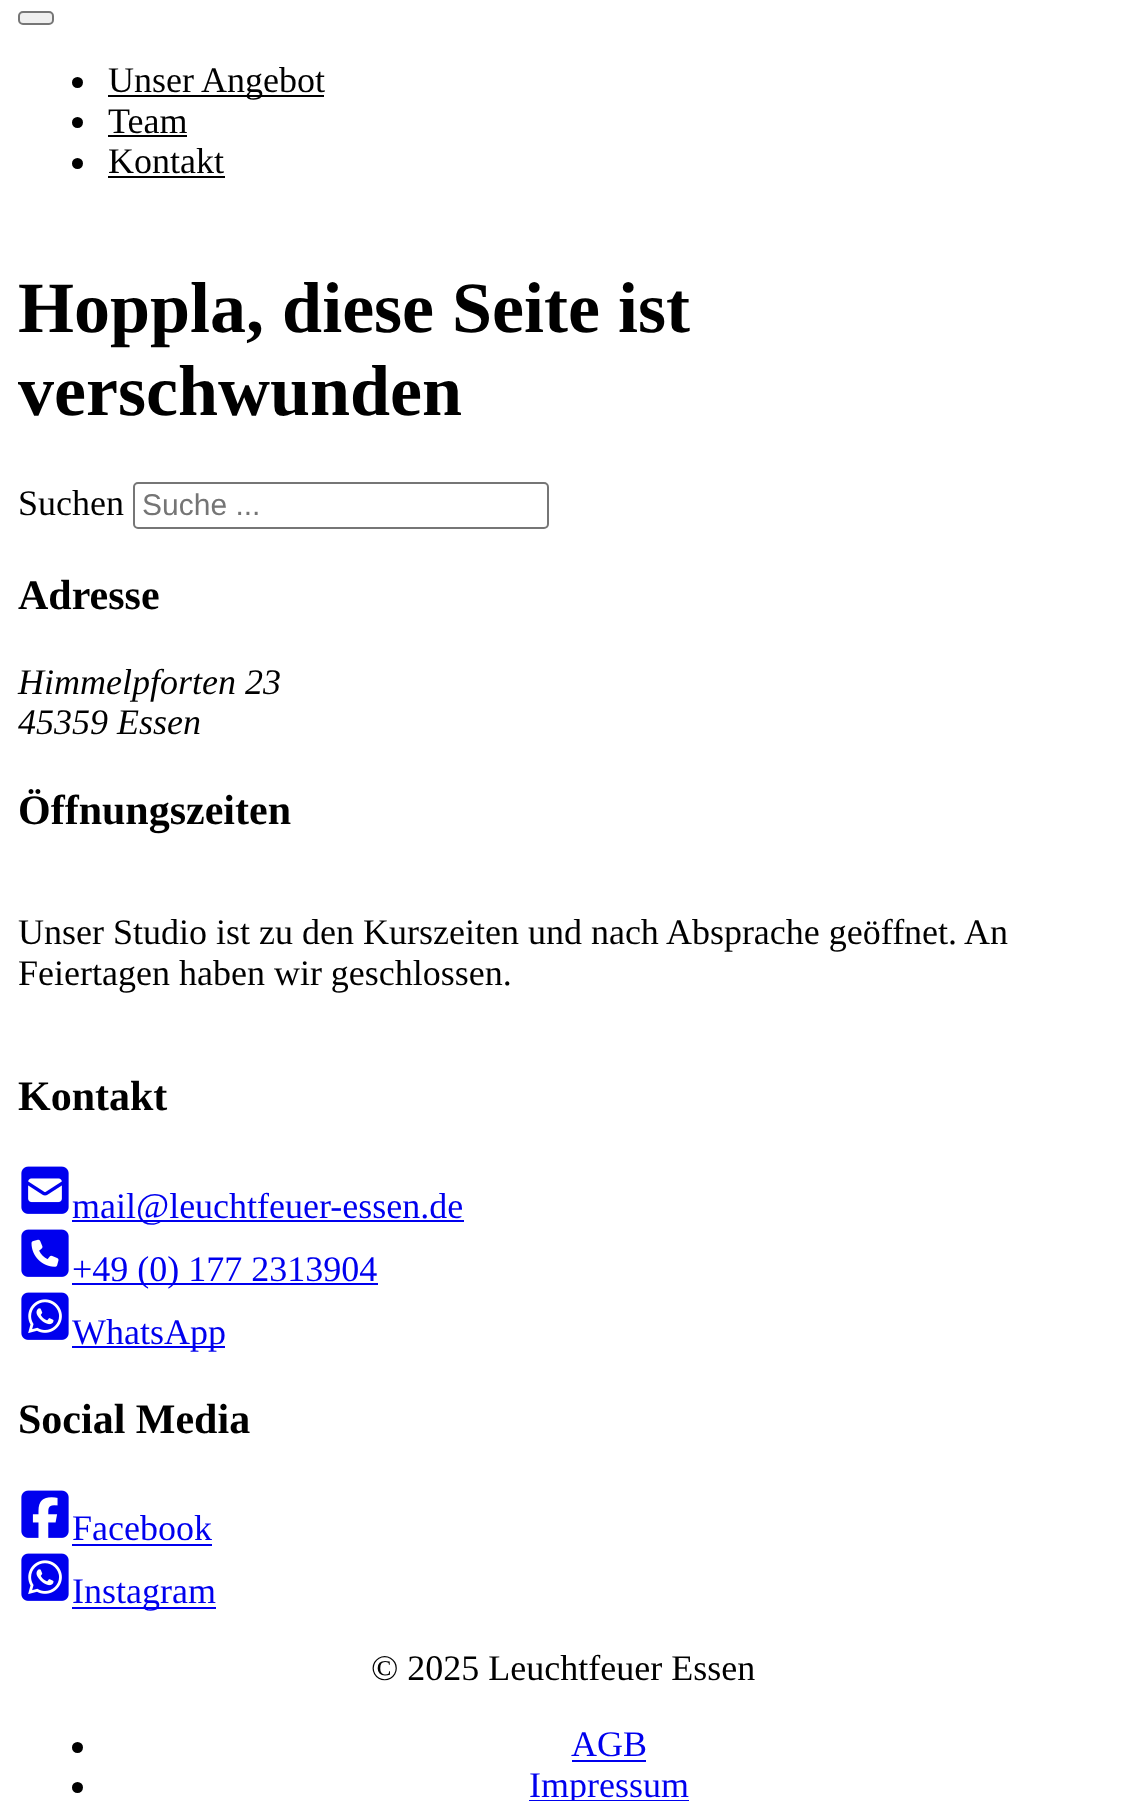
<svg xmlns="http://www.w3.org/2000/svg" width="1127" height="1801">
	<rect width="100%" height="100%" fill="#FFFFFF" />
	<rect x="19" y="12" width="34" height="12" rx="4" fill="#EFEFEF" stroke="#767676" stroke-width="2" />
	<circle cx="77.5" cy="82.5" r="5.5" fill="#000000" />
	<rect x="108" y="95" width="216" height="2" fill="#000000" />
	<text x="108" y="92" font-family="Liberation Serif" font-size="36" fill="#000000">Unser Angebot</text>
	<circle cx="77.5" cy="122.5" r="5.5" fill="#000000" />
	<text x="108" y="133" font-family="Liberation Serif" font-size="36" fill="#000000">Team</text>
	<rect x="108" y="135" width="79" height="2" fill="#000000" />
	<circle cx="77.5" cy="163.5" r="5.5" fill="#000000" />
	<text x="108" y="173" font-family="Liberation Serif" font-size="36" fill="#000000">Kontakt</text>
	<rect x="108" y="176" width="117" height="2" fill="#000000" />
	<g font-family="Liberation Serif" font-size="72" font-weight="700" fill="#000000">
		<text x="18" y="332">Hoppla, diese Seite ist</text>
		<text x="18" y="415">verschwunden</text>
	</g>
	<text x="18" y="515" font-family="Liberation Serif" font-size="36" fill="#000000">Suchen</text>
	<rect x="134" y="483" width="414" height="45" rx="4" fill="none" stroke="#767676" stroke-width="2" />
	<text x="142" y="515" font-family="Liberation Sans" font-size="30" fill="#757575">Suche ...</text>
	<text x="18" y="609" font-family="Liberation Serif" font-size="42" font-weight="700" fill="#000000">Adresse</text>
	<g font-family="Liberation Serif" font-size="36" font-style="italic" fill="#000000">
		<text x="18" y="694">Himmelpforten 23</text>
		<text x="18" y="734">45359 Essen</text>
	</g>
	<text x="18" y="824" font-family="Liberation Serif" font-size="42" font-weight="700" fill="#000000">Öffnungszeiten</text>
	<g font-family="Liberation Serif" font-size="36" fill="#000000">
		<text x="18" y="944">Unser Studio ist zu den Kurszeiten und nach Absprache geöffnet. An</text>
		<text x="18" y="985">Feiertagen haben wir geschlossen.</text>
	</g>
	<text x="18" y="1110" font-family="Liberation Serif" font-size="42" font-weight="700" fill="#000000">Kontakt</text>
	<image x="21" y="1166" width="48" height="48" href="assets/img1.png" />
	<rect x="72" y="1220" width="392" height="2" fill="#0000EE" />
	<text x="72" y="1218" font-family="Liberation Serif" font-size="36" fill="#0000EE">mail@leuchtfeuer-essen.de</text>
	<image x="21" y="1229" width="48" height="48" href="assets/img2.png" />
	<rect x="72" y="1283" width="306" height="2" fill="#0000EE" />
	<text x="72" y="1281" font-family="Liberation Serif" font-size="36" fill="#0000EE">+49 (0) 177 2313904</text>
	<image x="21" y="1292" width="48" height="48" href="assets/img3.png" />
	<rect x="72" y="1346" width="153" height="2" fill="#0000EE" />
	<text x="72" y="1344" font-family="Liberation Serif" font-size="36" fill="#0000EE">WhatsApp</text>
	<text x="18" y="1433" font-family="Liberation Serif" font-size="42" font-weight="700" fill="#000000">Social Media</text>
	<image x="21" y="1490" width="48" height="48" href="assets/img4.png" />
	<text x="72" y="1540" font-family="Liberation Serif" font-size="36" fill="#0000EE">Facebook</text>
	<rect x="72" y="1544" width="140" height="2" fill="#0000EE" />
	<image x="21" y="1553" width="48" height="48" href="assets/img3.png" />
	<rect x="72" y="1607" width="144" height="2" fill="#0000EE" />
	<text x="72" y="1603" font-family="Liberation Serif" font-size="36" fill="#0000EE">Instagram</text>
	<text x="371" y="1680" font-family="Liberation Serif" font-size="36" fill="#000000">© 2025 Leuchtfeuer Essen</text>
	<circle cx="77.5" cy="1747.5" r="5.5" fill="#000000" />
	<text x="571" y="1756" font-family="Liberation Serif" font-size="36" fill="#0000EE">AGB</text>
	<rect x="572" y="1760" width="74" height="2" fill="#0000EE" />
	<circle cx="77.5" cy="1787.5" r="5.5" fill="#000000" />
	<rect x="529" y="1800" width="160" height="1" fill="#0000EE" />
	<text x="529" y="1797" font-family="Liberation Serif" font-size="36" fill="#0000EE">Impressum</text>
</svg>
